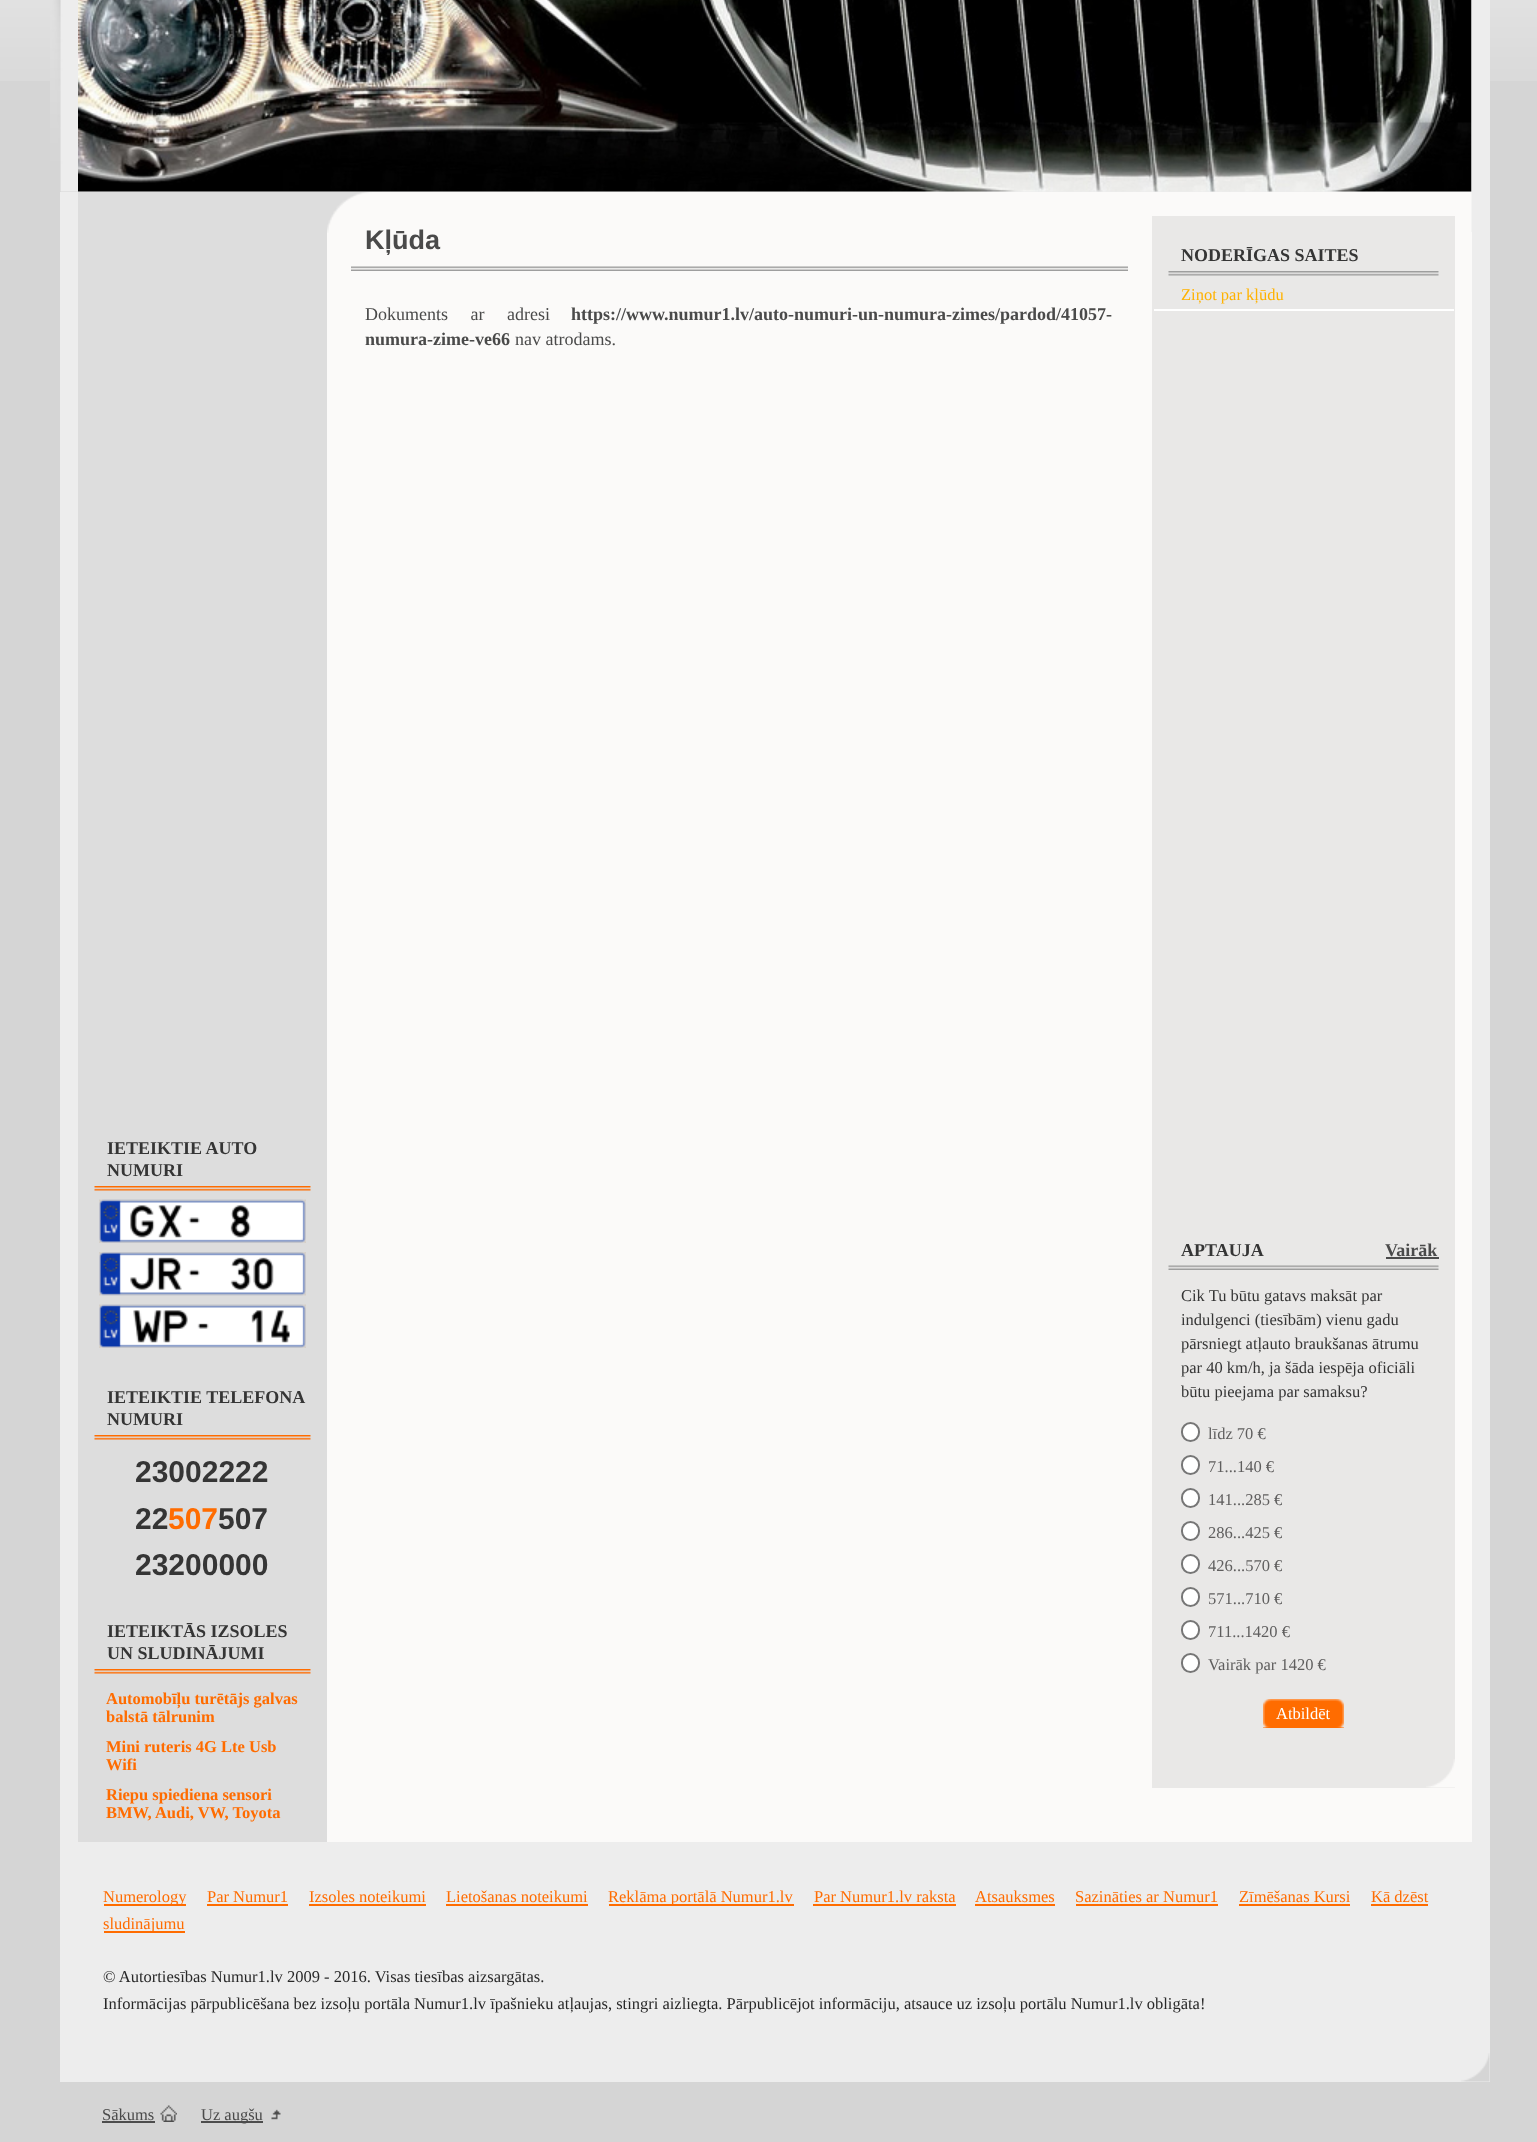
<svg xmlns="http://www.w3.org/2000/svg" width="1537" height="2142">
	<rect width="100%" height="100%" fill="#D5D5D5" />
	<image x="0" y="0" width="1537" height="81" href="assets/img1.png" />
	<image x="50" y="0" width="28" height="192" href="assets/img2.png" />
	<rect x="78" y="0" width="1412" height="192" fill="#EDEDED" />
	<image x="78" y="0" width="1394" height="192" href="assets/img3.png" />
	<rect x="60" y="192" width="1430" height="1890" fill="#EDEDED" />
	<rect x="327" y="192" width="1145" height="1650" fill="#FBFAF9" />
	<rect x="1471" y="0" width="1" height="232" fill="#EDEDED" fill-opacity="0.5" />
	<rect x="78" y="192" width="249" height="1650" fill="#DDDDDD" />
	<image x="94" y="1186" width="217" height="5" href="assets/img4.png" />
	<g font-family="Liberation Serif" font-size="18" font-weight="700" fill="#353535">
		<text x="107" y="1154">IETEIKTIE AUTO</text>
		<text x="107" y="1176">NUMURI</text>
	</g>
	<image x="99" y="1199" width="207" height="44" href="assets/img5.png" />
	<image x="99" y="1252" width="207" height="44" href="assets/img6.png" />
	<image x="99" y="1304" width="207" height="44" href="assets/img7.png" />
	<image x="94" y="1435" width="217" height="5" href="assets/img4.png" />
	<g font-family="Liberation Serif" font-size="18" font-weight="700" fill="#353535">
		<text x="107" y="1403">IETEIKTIE TELEFONA</text>
		<text x="107" y="1425">NUMURI</text>
	</g>
	<g font-family="Liberation Sans" font-size="30" font-weight="700" fill="#353535">
		<text x="135" y="1482">23002222</text>
		<text x="135" y="1529">22</text>
	</g>
	<text x="168" y="1529" font-family="Liberation Sans" font-size="30" font-weight="700" fill="#FF6C00">507</text>
	<g font-family="Liberation Sans" font-size="30" font-weight="700" fill="#353535">
		<text x="218" y="1529">507</text>
		<text x="135" y="1575">23200000</text>
	</g>
	<image x="94" y="1669" width="217" height="5" href="assets/img4.png" />
	<g font-family="Liberation Serif" font-size="18" font-weight="700" fill="#353535">
		<text x="107" y="1637">IETEIKTĀS IZSOLES</text>
		<text x="107" y="1659">UN SLUDINĀJUMI</text>
	</g>
	<g font-family="Liberation Serif" font-size="16.5" font-weight="700" fill="#FF6C00">
		<text x="106" y="1704">Automobīļu turētājs galvas</text>
		<text x="106" y="1722">balstā tālrunim</text>
		<text x="106" y="1752">Mini ruteris 4G Lte Usb</text>
		<text x="106" y="1770">Wifi</text>
		<text x="106" y="1800">Riepu spiediena sensori</text>
		<text x="106" y="1818">BMW, Audi, VW, Toyota</text>
	</g>
	<image x="327" y="192" width="45" height="41" href="assets/img8.png" />
	<image x="351" y="266" width="777" height="5" href="assets/img9.png" />
	<text x="365" y="249" font-family="Liberation Sans" font-size="27" font-weight="700" fill="#4A4A4A">Kļūda</text>
	<text x="365" y="320" word-spacing="18" font-family="Liberation Serif" font-size="18" fill="#4A4A4A">Dokuments ar adresi</text>
	<g font-family="Liberation Serif" font-size="18" font-weight="700" fill="#4A4A4A">
		<text x="571" y="320">https://www.numur1.lv/auto-numuri-un-numura-zimes/pardod/41057-</text>
		<text x="365" y="345">numura-zime-ve66</text>
	</g>
	<text x="515" y="345" font-family="Liberation Serif" font-size="18" fill="#4A4A4A">nav atrodams.</text>
	<rect x="1152" y="216" width="303" height="1572" fill="#E9E8E7" />
	<image x="1426" y="1759" width="29" height="29" href="assets/img10.png" />
	<image x="1168" y="271" width="271" height="5" href="assets/img11.png" />
	<text x="1181" y="261" font-family="Liberation Serif" font-size="18" font-weight="700" fill="#353535">NODERĪGAS SAITES</text>
	<rect x="1154" y="309" width="300" height="2" fill="#FFFFFF" />
	<text x="1181" y="300" font-family="Liberation Serif" font-size="16.5" fill="#FFB200">Ziņot par kļūdu</text>
	<image x="1168" y="1265" width="271" height="5" href="assets/img12.png" />
	<text x="1181" y="1256" font-family="Liberation Serif" font-size="18" font-weight="700" fill="#353535">APTAUJA</text>
	<text x="1385" y="1256" font-family="Liberation Serif" font-size="18" font-weight="700" fill="#4A4A4A">Vairāk</text>
	<rect x="1386" y="1257" width="53" height="2" fill="#4A4A4A" />
	<g font-family="Liberation Serif" font-size="16.5" fill="#353535">
		<text x="1181" y="1301">Cik Tu būtu gatavs maksāt par</text>
		<text x="1181" y="1325">indulgenci (tiesībām) vienu gadu</text>
		<text x="1181" y="1349">pārsniegt atļauto braukšanas ātrumu</text>
		<text x="1181" y="1373">par 40 km/h, ja šāda iespēja oficiāli</text>
		<text x="1181" y="1397">būtu pieejama par samaksu?</text>
	</g>
	<rect x="1182" y="1423" width="17" height="18" rx="8.5" fill="#FFFFFF" stroke="#767676" stroke-width="2" />
	<text x="1208" y="1439" font-family="Liberation Serif" font-size="16.5" fill="#5F5E5E">līdz 70 €</text>
	<rect x="1182" y="1456" width="17" height="18" rx="8.5" fill="#FFFFFF" stroke="#767676" stroke-width="2" />
	<text x="1208" y="1472" font-family="Liberation Serif" font-size="16.5" fill="#5F5E5E">71...140 €</text>
	<rect x="1182" y="1489" width="17" height="18" rx="8.5" fill="#FFFFFF" stroke="#767676" stroke-width="2" />
	<text x="1208" y="1505" font-family="Liberation Serif" font-size="16.5" fill="#5F5E5E">141...285 €</text>
	<rect x="1182" y="1522" width="17" height="18" rx="8.5" fill="#FFFFFF" stroke="#767676" stroke-width="2" />
	<text x="1208" y="1538" font-family="Liberation Serif" font-size="16.5" fill="#5F5E5E">286...425 €</text>
	<rect x="1182" y="1555" width="17" height="18" rx="8.5" fill="#FFFFFF" stroke="#767676" stroke-width="2" />
	<text x="1208" y="1571" font-family="Liberation Serif" font-size="16.5" fill="#5F5E5E">426...570 €</text>
	<rect x="1182" y="1588" width="17" height="18" rx="8.5" fill="#FFFFFF" stroke="#767676" stroke-width="2" />
	<text x="1208" y="1604" font-family="Liberation Serif" font-size="16.5" fill="#5F5E5E">571...710 €</text>
	<rect x="1182" y="1621" width="17" height="18" rx="8.5" fill="#FFFFFF" stroke="#767676" stroke-width="2" />
	<text x="1208" y="1637" font-family="Liberation Serif" font-size="16.5" fill="#5F5E5E">711...1420 €</text>
	<rect x="1182" y="1654" width="17" height="18" rx="8.5" fill="#FFFFFF" stroke="#767676" stroke-width="2" />
	<text x="1208" y="1670" font-family="Liberation Serif" font-size="16.5" fill="#5F5E5E">Vairāk par 1420 €</text>
	<rect x="1263" y="1700" width="81" height="28" fill="#FF6C00" />
	<image x="1263" y="1699" width="81" height="29" href="assets/img13.png" />
	<text x="1276" y="1719" font-family="Liberation Serif" font-size="16.5" fill="#FFFFFF">Atbildēt</text>
	<image x="1461" y="2053" width="29" height="29" href="assets/img14.png" />
	<rect x="104" y="1904" width="82" height="2" fill="#FF6C00" />
	<g font-family="Liberation Serif" font-size="16.5" fill="#FF6C00">
		<text x="103" y="1902">Numerology</text>
		<text x="207" y="1902">Par Numur1</text>
	</g>
	<rect x="207" y="1904" width="81" height="2" fill="#FF6C00" />
	<text x="309" y="1902" font-family="Liberation Serif" font-size="16.5" fill="#FF6C00">Izsoles noteikumi</text>
	<rect x="309" y="1904" width="117" height="2" fill="#FF6C00" />
	<text x="446" y="1902" font-family="Liberation Serif" font-size="16.5" fill="#FF6C00">Lietošanas noteikumi</text>
	<rect x="446" y="1904" width="142" height="2" fill="#FF6C00" />
	<rect x="609" y="1904" width="185" height="2" fill="#FF6C00" />
	<g font-family="Liberation Serif" font-size="16.5" fill="#FF6C00">
		<text x="608" y="1902">Reklāma portālā Numur1.lv</text>
		<text x="814" y="1902">Par Numur1.lv raksta</text>
	</g>
	<rect x="813" y="1904" width="143" height="2" fill="#FF6C00" />
	<text x="975" y="1902" font-family="Liberation Serif" font-size="16.5" fill="#FF6C00">Atsauksmes</text>
	<rect x="975" y="1904" width="80" height="2" fill="#FF6C00" />
	<text x="1075" y="1902" font-family="Liberation Serif" font-size="16.5" fill="#FF6C00">Sazināties ar Numur1</text>
	<rect x="1076" y="1904" width="142" height="2" fill="#FF6C00" />
	<text x="1239" y="1902" font-family="Liberation Serif" font-size="16.5" fill="#FF6C00">Zīmēšanas Kursi</text>
	<rect x="1239" y="1904" width="111" height="2" fill="#FF6C00" />
	<text x="1371" y="1902" font-family="Liberation Serif" font-size="16.5" fill="#FF6C00">Kā dzēst</text>
	<rect x="1371" y="1904" width="57" height="2" fill="#FF6C00" />
	<rect x="104" y="1931" width="81" height="2" fill="#FF6C00" />
	<text x="103" y="1929" font-family="Liberation Serif" font-size="16.5" fill="#FF6C00">sludinājumu</text>
	<g font-family="Liberation Serif" font-size="16.5" fill="#282828">
		<text x="103" y="1982">© Autortiesības Numur1.lv 2009 - 2016. Visas tiesības aizsargātas.</text>
		<text x="103" y="2009">Informācijas pārpublicēšana bez izsoļu portāla Numur1.lv īpašnieku atļaujas, stingri aizliegta. Pārpublicējot informāciju, atsauce uz izsoļu portālu Numur1.lv obligāta!</text>
	</g>
	<image x="160" y="2105" width="17" height="17" href="assets/img15.png" />
	<text x="102" y="2120" font-family="Liberation Serif" font-size="16.5" fill="#4A4A4A">Sākums</text>
	<rect x="102" y="2121" width="53" height="2" fill="#4D4D4D" />
	<image x="271" y="2109" width="10" height="11" href="assets/img16.png" />
	<rect x="201" y="2121" width="62" height="2" fill="#4D4D4D" />
	<text x="201" y="2120" font-family="Liberation Serif" font-size="16.5" fill="#4A4A4A">Uz augšu</text>
</svg>
